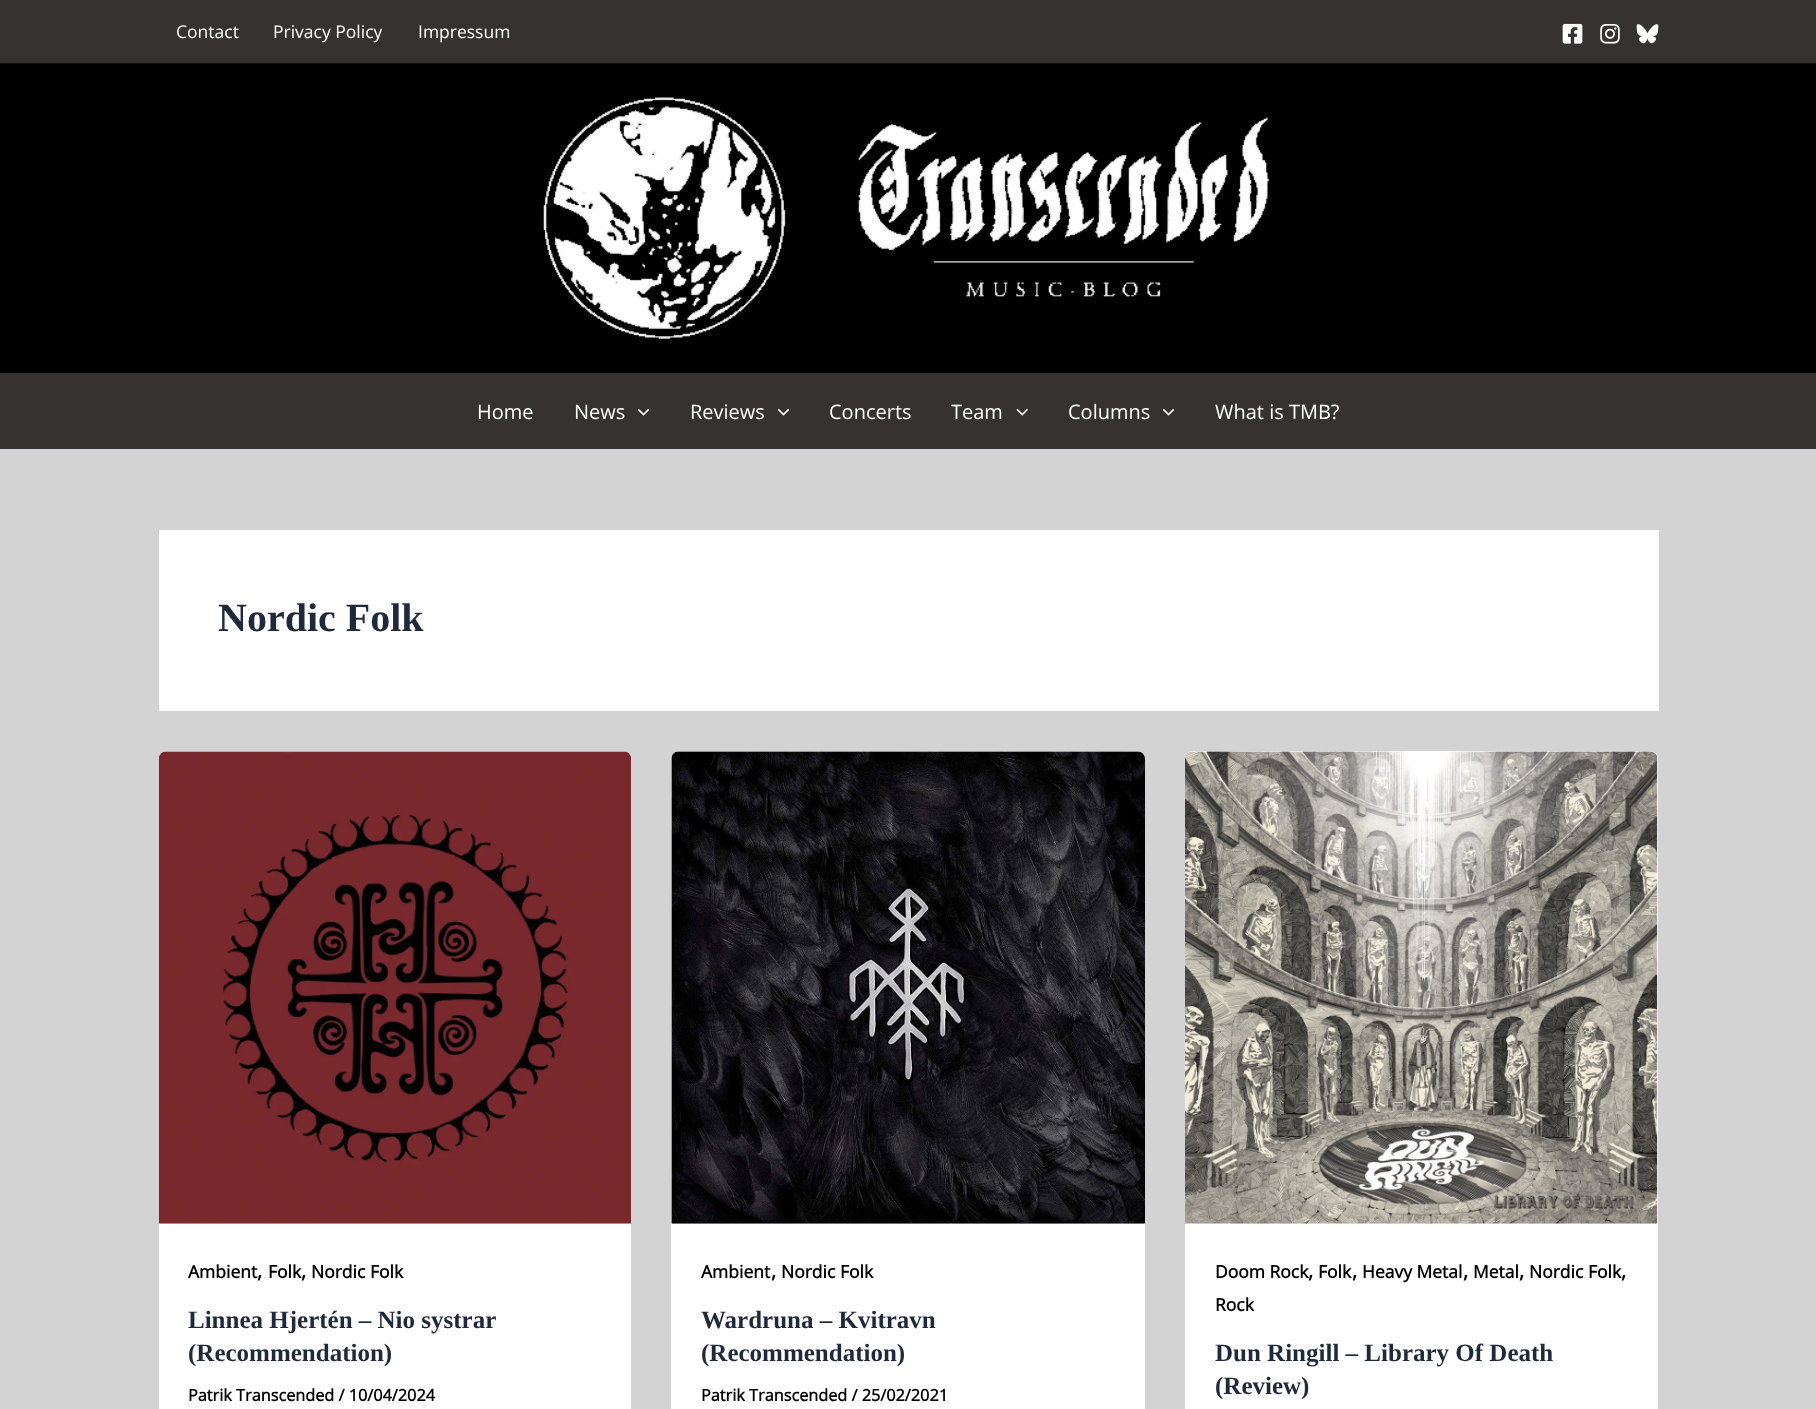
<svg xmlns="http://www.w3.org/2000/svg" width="1816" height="1409">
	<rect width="100%" height="100%" fill="#D3D3D3" />
	<rect x="0" y="0" width="1816" height="63" fill="#353231" />
	<rect x="0" y="63" width="1816" height="1" fill="#111111" />
	<g font-family="Open Sans" font-size="17.5" fill="#FEFFFF">
		<text x="176" y="38">Contact</text>
		<text x="273" y="38">Privacy Policy</text>
		<text x="418" y="38">Impressum</text>
	</g>
	<image x="1562" y="23" width="21" height="21" href="assets/img1.png" />
	<image x="1600" y="24" width="20" height="20" href="assets/img2.png" />
	<image x="1636" y="24" width="23" height="20" href="assets/img3.png" />
	<rect x="0" y="64" width="1816" height="309" fill="#000000" />
	<image x="543" y="97" width="726" height="242" href="assets/img4.png" />
	<rect x="0" y="373" width="1816" height="76" fill="#353231" />
	<rect x="0" y="449" width="1816" height="1" fill="#D1D5DB" />
	<g font-family="Open Sans" font-size="20" fill="#FEFFFF">
		<text x="477" y="419">Home</text>
		<text x="574" y="419">News</text>
	</g>
	<image x="638" y="408" width="12" height="8" href="assets/img5.png" />
	<text x="690" y="419" font-family="Open Sans" font-size="20" fill="#FEFFFF">Reviews</text>
	<image x="778" y="408" width="11" height="8" href="assets/img6.png" />
	<g font-family="Open Sans" font-size="20" fill="#FEFFFF">
		<text x="829" y="419">Concerts</text>
		<text x="951" y="419">Team</text>
	</g>
	<image x="1016" y="408" width="12" height="8" href="assets/img7.png" />
	<text x="1068" y="419" font-family="Open Sans" font-size="20" fill="#FEFFFF">Columns</text>
	<image x="1163" y="408" width="12" height="8" href="assets/img5.png" />
	<text x="1215" y="419" font-family="Open Sans" font-size="20" fill="#FEFFFF">What is TMB?</text>
	<rect x="159" y="530" width="1500" height="181" fill="#FFFFFF" />
	<text x="218" y="631" font-family="Liberation Serif" font-size="40" font-weight="700" fill="#1E293B">Nordic Folk</text>
	<rect x="159" y="751" width="472" height="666" rx="8" fill="#FFFFFF" />
	<image x="159" y="751" width="472" height="473" href="assets/img8.png" />
	<text x="188" y="1278" font-family="Open Sans" font-size="17.5" font-weight="700" fill="#000000">Ambient</text>
	<text x="257" y="1278" font-family="Open Sans" font-size="20" font-weight="700" fill="#000000">,</text>
	<text x="268" y="1278" font-family="Open Sans" font-size="17.5" font-weight="700" fill="#000000">Folk</text>
	<text x="301" y="1278" font-family="Open Sans" font-size="20" font-weight="700" fill="#000000">,</text>
	<text x="311" y="1278" font-family="Open Sans" font-size="17.5" font-weight="700" fill="#000000">Nordic Folk</text>
	<g font-family="Liberation Serif" font-size="25" font-weight="700" fill="#1E293B">
		<text x="188" y="1328">Linnea Hjertén – Nio systrar</text>
		<text x="188" y="1361">(Recommendation)</text>
	</g>
	<text x="188" y="1401" font-family="Open Sans" font-size="16.25" font-weight="700" fill="#000000">Patrik Transcended / 10/04/2024</text>
	<rect x="671" y="751" width="474" height="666" rx="8" fill="#FFFFFF" />
	<image x="671" y="751" width="474" height="473" href="assets/img9.png" />
	<text x="701" y="1278" font-family="Open Sans" font-size="17.5" font-weight="700" fill="#000000">Ambient</text>
	<text x="771" y="1278" font-family="Open Sans" font-size="20" font-weight="700" fill="#000000">,</text>
	<text x="781" y="1278" font-family="Open Sans" font-size="17.5" font-weight="700" fill="#000000">Nordic Folk</text>
	<g font-family="Liberation Serif" font-size="25" font-weight="700" fill="#1E293B">
		<text x="701" y="1328">Wardruna – Kvitravn</text>
		<text x="701" y="1361">(Recommendation)</text>
	</g>
	<text x="701" y="1401" font-family="Open Sans" font-size="16.25" font-weight="700" fill="#000000">Patrik Transcended / 25/02/2021</text>
	<rect x="1185" y="751" width="473" height="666" rx="8" fill="#FFFFFF" />
	<image x="1185" y="751" width="473" height="473" href="assets/img10.png" />
	<text x="1215" y="1278" font-family="Open Sans" font-size="17.5" font-weight="700" fill="#000000">Doom Rock</text>
	<text x="1308" y="1278" font-family="Open Sans" font-size="20" font-weight="700" fill="#000000">,</text>
	<text x="1318" y="1278" font-family="Open Sans" font-size="17.5" font-weight="700" fill="#000000">Folk</text>
	<text x="1352" y="1278" font-family="Open Sans" font-size="20" font-weight="700" fill="#000000">,</text>
	<text x="1362" y="1278" font-family="Open Sans" font-size="17.5" font-weight="700" fill="#000000">Heavy Metal</text>
	<text x="1463" y="1278" font-family="Open Sans" font-size="20" font-weight="700" fill="#000000">,</text>
	<text x="1473" y="1278" font-family="Open Sans" font-size="17.5" font-weight="700" fill="#000000">Metal</text>
	<text x="1519" y="1278" font-family="Open Sans" font-size="20" font-weight="700" fill="#000000">,</text>
	<text x="1529" y="1278" font-family="Open Sans" font-size="17.5" font-weight="700" fill="#000000">Nordic Folk</text>
	<text x="1621" y="1278" font-family="Open Sans" font-size="20" font-weight="700" fill="#000000">,</text>
	<text x="1215" y="1311" font-family="Open Sans" font-size="17.5" font-weight="700" fill="#000000">Rock</text>
	<g font-family="Liberation Serif" font-size="25" font-weight="700" fill="#1E293B">
		<text x="1215" y="1361">Dun Ringill – Library Of Death</text>
		<text x="1215" y="1394">(Review)</text>
	</g>
</svg>
